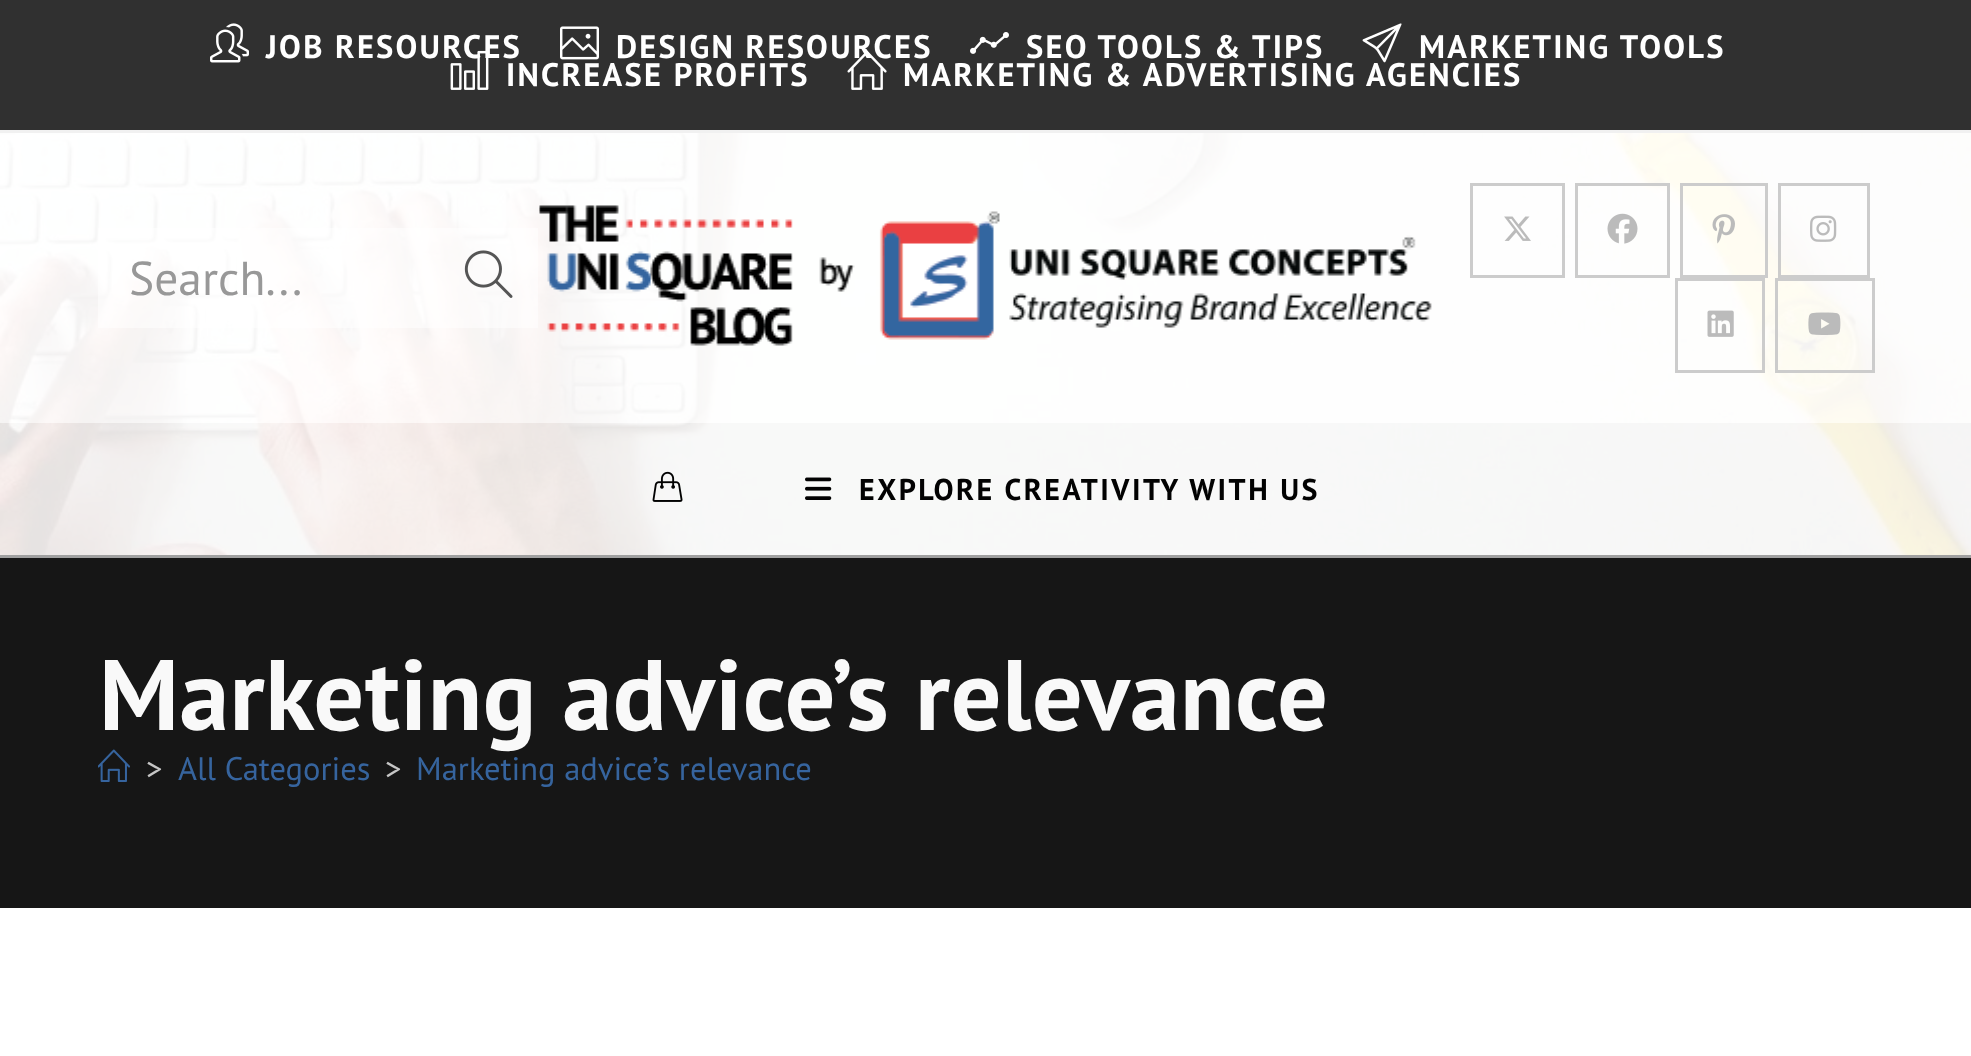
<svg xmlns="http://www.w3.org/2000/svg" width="1971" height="1056">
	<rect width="100%" height="100%" fill="#FFFFFF" />
	<rect x="0" y="0" width="1971" height="130" fill="#303030" />
	<rect x="0" y="130" width="1971" height="3" fill="#F1F1F1" />
	<image x="210" y="23" width="39" height="40" href="assets/img1.png" />
	<text x="266" y="58" font-family="PT Sans" font-size="32.5" font-weight="700" letter-spacing="2.25" fill="#FFFFFF">JOB RESOURCES</text>
	<image x="560" y="26" width="39" height="34" href="assets/img2.png" />
	<text x="616" y="58" font-family="PT Sans" font-size="32.5" font-weight="700" letter-spacing="2.25" fill="#FFFFFF">DESIGN RESOURCES</text>
	<image x="970" y="32" width="39" height="22" href="assets/img3.png" />
	<text x="1026" y="58" font-family="PT Sans" font-size="32.5" font-weight="700" letter-spacing="2.25" fill="#FFFFFF">SEO TOOLS &amp; TIPS</text>
	<image x="1362" y="23" width="40" height="40" href="assets/img4.png" />
	<text x="1419" y="58" font-family="PT Sans" font-size="32.5" font-weight="700" letter-spacing="2.25" fill="#FFFFFF">MARKETING TOOLS</text>
	<image x="450" y="50" width="39" height="40" href="assets/img5.png" />
	<text x="506" y="86" font-family="PT Sans" font-size="32.5" font-weight="700" letter-spacing="2.25" fill="#FFFFFF">INCREASE PROFITS</text>
	<image x="847" y="51" width="40" height="39" href="assets/img6.png" />
	<text x="903" y="86" font-family="PT Sans" font-size="32.5" font-weight="700" letter-spacing="2.25" fill="#FFFFFF">MARKETING &amp; ADVERTISING AGENCIES</text>
	<image x="0" y="133" width="1971" height="422" href="assets/img7.png" />
	<rect x="0" y="555" width="1971" height="3" fill="#A0A0A0" />
	<rect x="0" y="133" width="1971" height="290" fill="#FFFFFF" fill-opacity="0.95" />
	<rect x="98" y="228" width="440" height="100" fill="#FFFFFF" fill-opacity="0.5" />
	<text x="129" y="295" font-family="PT Sans" font-size="47.5" fill="#989898">Search...</text>
	<image x="464" y="250" width="49" height="48" href="assets/img8.png" />
	<image x="539" y="205" width="893" height="141" href="assets/img9.png" />
	<rect x="1471.5" y="184.5" width="92" height="92" fill="none" stroke="#CCCCCC" stroke-width="3" />
	<image x="1504" y="216" width="27" height="25" href="assets/img10.png" />
	<rect x="1576.5" y="184.5" width="92" height="92" fill="none" stroke="#CCCCCC" stroke-width="3" />
	<image x="1607" y="213" width="31" height="31" href="assets/img11.png" />
	<rect x="1681.5" y="184.5" width="85" height="92" fill="none" stroke="#CCCCCC" stroke-width="3" />
	<image x="1712" y="214" width="23" height="30" href="assets/img12.png" />
	<rect x="1779.5" y="184.5" width="89" height="92" fill="none" stroke="#CCCCCC" stroke-width="3" />
	<image x="1810" y="215" width="27" height="27" href="assets/img13.png" />
	<rect x="1676.5" y="279.5" width="87" height="92" fill="none" stroke="#CCCCCC" stroke-width="3" />
	<image x="1707" y="310" width="27" height="27" href="assets/img14.png" />
	<rect x="1776.5" y="279.5" width="97" height="92" fill="none" stroke="#CCCCCC" stroke-width="3" />
	<image x="1808" y="312" width="33" height="23" href="assets/img15.png" />
	<rect x="0" y="423" width="1971" height="132" fill="#F9F9F9" fill-opacity="0.9" />
	<image x="652" y="471" width="31" height="31" href="assets/img16.png" />
	<image x="805" y="477" width="27" height="23" href="assets/img17.png" />
	<text x="859" y="500" font-family="PT Sans" font-size="30" font-weight="700" letter-spacing="2.5" fill="#020202">EXPLORE CREATIVITY WITH US</text>
	<rect x="0" y="558" width="1971" height="350" fill="#161616" />
	<text x="99" y="730" font-family="PT Sans" font-size="100" font-weight="700" letter-spacing="0.5" fill="#F9F9F9">Marketing advice’s relevance</text>
	<image x="98" y="749" width="32" height="33" href="assets/img18.png" />
	<text x="146" y="780" font-family="PT Sans" font-size="32.5" fill="#C6C6C6">&gt;</text>
	<text x="178" y="780" font-family="PT Sans" font-size="32.5" fill="#36649E">All Categories</text>
	<text x="385" y="780" font-family="PT Sans" font-size="32.5" fill="#C6C6C6">&gt;</text>
	<text x="416" y="780" font-family="PT Sans" font-size="32.5" fill="#36649E">Marketing advice’s relevance</text>
</svg>
